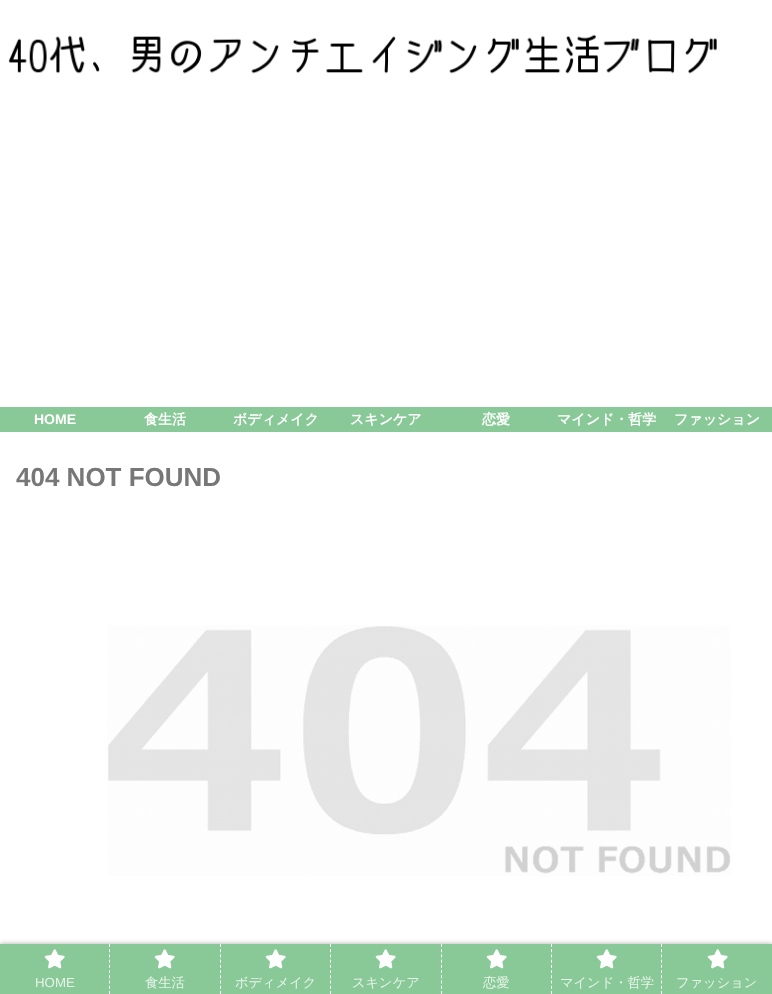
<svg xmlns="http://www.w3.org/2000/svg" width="772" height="994">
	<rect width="100%" height="100%" fill="#FFFFFF" />
	<image x="8" y="34" width="709" height="40" href="assets/img1.png" />
	<rect x="0" y="407" width="772" height="25" fill="#89C997" />
	<text x="34" y="424" font-family="Liberation Sans" font-size="14" font-weight="700" fill="#FFFFFF">HOME</text>
	<g font-family="WenQuanYi Zen Hei" font-size="14" font-weight="700" fill="#FFFFFF">
		<text x="144" y="424">食生活</text>
		<text x="233" y="424">ボディメイク</text>
		<text x="350" y="424">スキンケア</text>
		<text x="482" y="424">恋愛</text>
		<text x="557" y="424">マインド・哲学</text>
		<text x="674" y="424">ファッション</text>
	</g>
	<text x="16" y="486" font-family="Liberation Sans" font-size="26" font-weight="700" fill="#777777">404 NOT FOUND</text>
	<image x="107" y="625" width="624" height="251" href="assets/img2.png" />
	<rect x="0" y="944" width="772" height="50" fill="#A9A9A9" filter="blur(2.5px)" />
	<rect x="0" y="944" width="772" height="50" fill="#89C997" />
	<path d="M109.5 944V994" fill="none" stroke="#FFFFFF" stroke-dasharray="3 2.22" />
	<image x="44" y="949" width="21" height="20" href="assets/img3.png" />
	<text x="35" y="987" font-family="Liberation Sans" font-size="13.25" fill="#E7F4EA">HOME</text>
	<path d="M220.5 944V994" fill="none" stroke="#FFFFFF" stroke-dasharray="3 2.22" />
	<image x="154" y="949" width="21" height="20" href="assets/img3.png" />
	<text x="145" y="987" font-family="WenQuanYi Zen Hei" font-size="13.25" font-weight="500" fill="#E7F4EA">食生活</text>
	<path d="M330.5 944V994" fill="none" stroke="#FFFFFF" stroke-dasharray="3 2.22" />
	<image x="265" y="949" width="21" height="20" href="assets/img3.png" />
	<text x="235" y="987" font-family="WenQuanYi Zen Hei" font-size="13.25" font-weight="500" fill="#E7F4EA">ボディメイク</text>
	<path d="M441.5 944V994" fill="none" stroke="#FFFFFF" stroke-dasharray="3 2.22" />
	<image x="375" y="949" width="21" height="20" href="assets/img3.png" />
	<text x="352" y="987" font-family="WenQuanYi Zen Hei" font-size="13.25" font-weight="500" fill="#E7F4EA">スキンケア</text>
	<path d="M551.5 944V994" fill="none" stroke="#FFFFFF" stroke-dasharray="3 2.22" />
	<image x="486" y="949" width="21" height="20" href="assets/img3.png" />
	<text x="483" y="987" font-family="WenQuanYi Zen Hei" font-size="13.25" font-weight="500" fill="#E7F4EA">恋愛</text>
	<path d="M661.5 944V994" fill="none" stroke="#FFFFFF" stroke-dasharray="3 2.22" />
	<image x="596" y="949" width="21" height="20" href="assets/img3.png" />
	<text x="560" y="987" font-family="WenQuanYi Zen Hei" font-size="13.25" font-weight="500" fill="#E7F4EA">マインド・哲学</text>
	<image x="707" y="949" width="21" height="20" href="assets/img3.png" />
	<text x="676" y="987" font-family="WenQuanYi Zen Hei" font-size="13.25" font-weight="500" fill="#E7F4EA">ファッション</text>
</svg>
